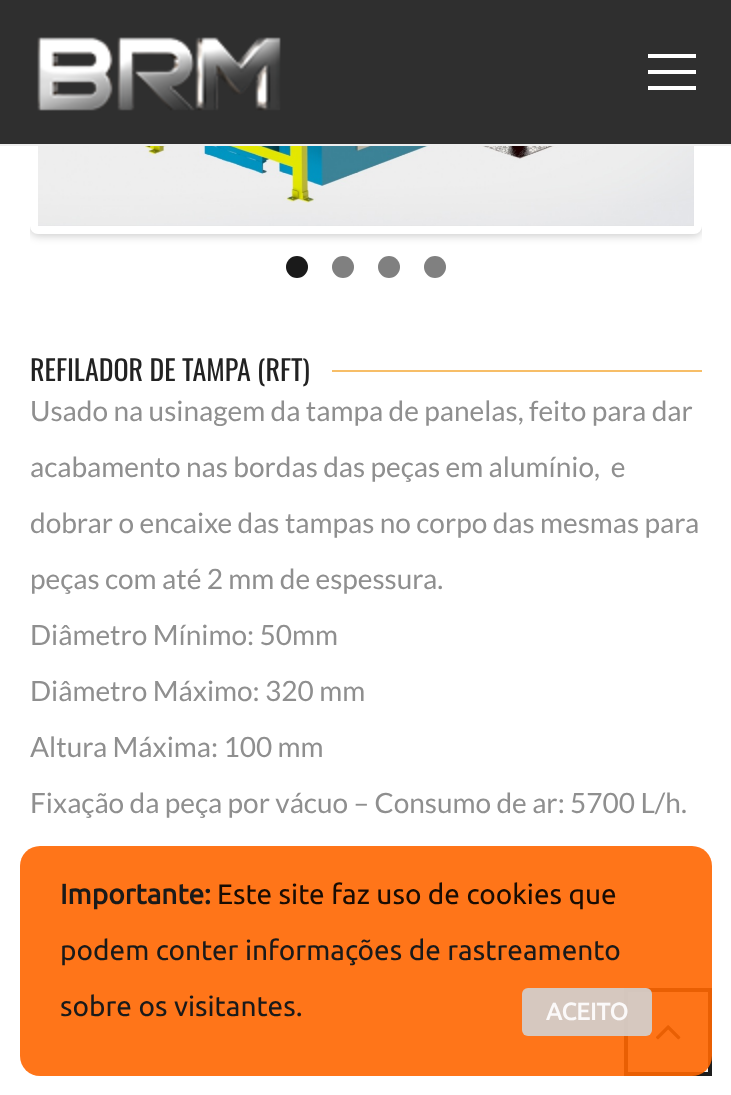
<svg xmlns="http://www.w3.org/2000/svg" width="731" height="1095">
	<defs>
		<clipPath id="clip1"><rect x="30" y="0" width="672" height="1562" /></clipPath>
	</defs>
	<rect width="100%" height="100%" fill="#FFFFFF" />
	<g clip-path="url(#clip1)">
		<rect x="30" y="-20" width="672" height="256" rx="8" fill="#000000" fill-opacity="0.2" filter="blur(4px)" />
	</g>
	<rect x="34" y="-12" width="664" height="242" rx="4" fill="none" stroke="#FFFFFF" stroke-width="8" />
	<rect x="0" y="0" width="731" height="144" fill="#2F2F2F" />
	<rect x="0" y="144" width="731" height="2" fill="#EEEEEE" />
	<image x="37" y="37" width="244" height="74" href="assets/img1.png" />
	<rect x="648" y="54" width="48" height="4" fill="#FFFFFF" />
	<rect x="648" y="70" width="48" height="4" fill="#FFFFFF" />
	<rect x="648" y="86" width="48" height="4" fill="#FFFFFF" />
	<image x="38" y="146" width="656" height="80" href="assets/img2.png" />
	<circle cx="297" cy="267" r="11" fill="#1A1A1A" />
	<circle cx="343" cy="267" r="11" fill="#808080" />
	<circle cx="389" cy="267" r="11" fill="#808080" />
	<circle cx="435" cy="267" r="11" fill="#808080" />
	<text x="30" y="381" font-family="Oswald" font-size="28" fill="#222222">REFILADOR DE TAMPA (RFT)</text>
	<rect x="332" y="370" width="370" height="2" fill="#F7BE68" />
	<g font-family="Lato" font-size="28" fill="#8F8F8F">
		<text x="30" y="421">Usado na usinagem da tampa de panelas, feito para dar</text>
		<text x="30" y="477" xml:space="preserve">acabamento nas bordas das peças em alumínio,  e</text>
		<text x="30" y="533">dobrar o encaixe das tampas no corpo das mesmas para</text>
		<text x="30" y="589">peças com até 2 mm de espessura.</text>
		<text x="30" y="645">Diâmetro Mínimo: 50mm</text>
		<text x="30" y="701">Diâmetro Máximo: 320 mm</text>
		<text x="30" y="757">Altura Máxima: 100 mm</text>
		<text x="30" y="813">Fixação da peça por vácuo – Consumo de ar: 5700 L/h.</text>
	</g>
	<rect x="626" y="990" width="84" height="84" fill="#F5F5F5" stroke="#1E1E1E" stroke-width="4" />
	<image x="655" y="1025" width="26" height="15" href="assets/img3.png" />
	<rect x="20" y="846" width="692" height="230" rx="20" fill="#FF6600" fill-opacity="0.9" />
	<text x="60" y="904" font-family="Ubuntu" font-size="28" font-weight="700" fill="#1A1A1A">Importante:</text>
	<text x="217" y="904" font-family="Ubuntu" font-size="28" fill="#190C03">Este site faz uso de cookies que</text>
	<g font-family="Ubuntu" font-size="28" fill="#1A1A1A">
		<text x="60" y="960">podem conter informações de rastreamento</text>
		<text x="60" y="1016">sobre os visitantes.</text>
	</g>
	<rect x="522" y="988" width="130" height="48" rx="6" fill="#D1D1D1" fill-opacity="0.9" />
	<text x="546" y="1020" font-family="Ubuntu" font-size="24" font-weight="700" fill="#FBF9F9">ACEITO</text>
</svg>
